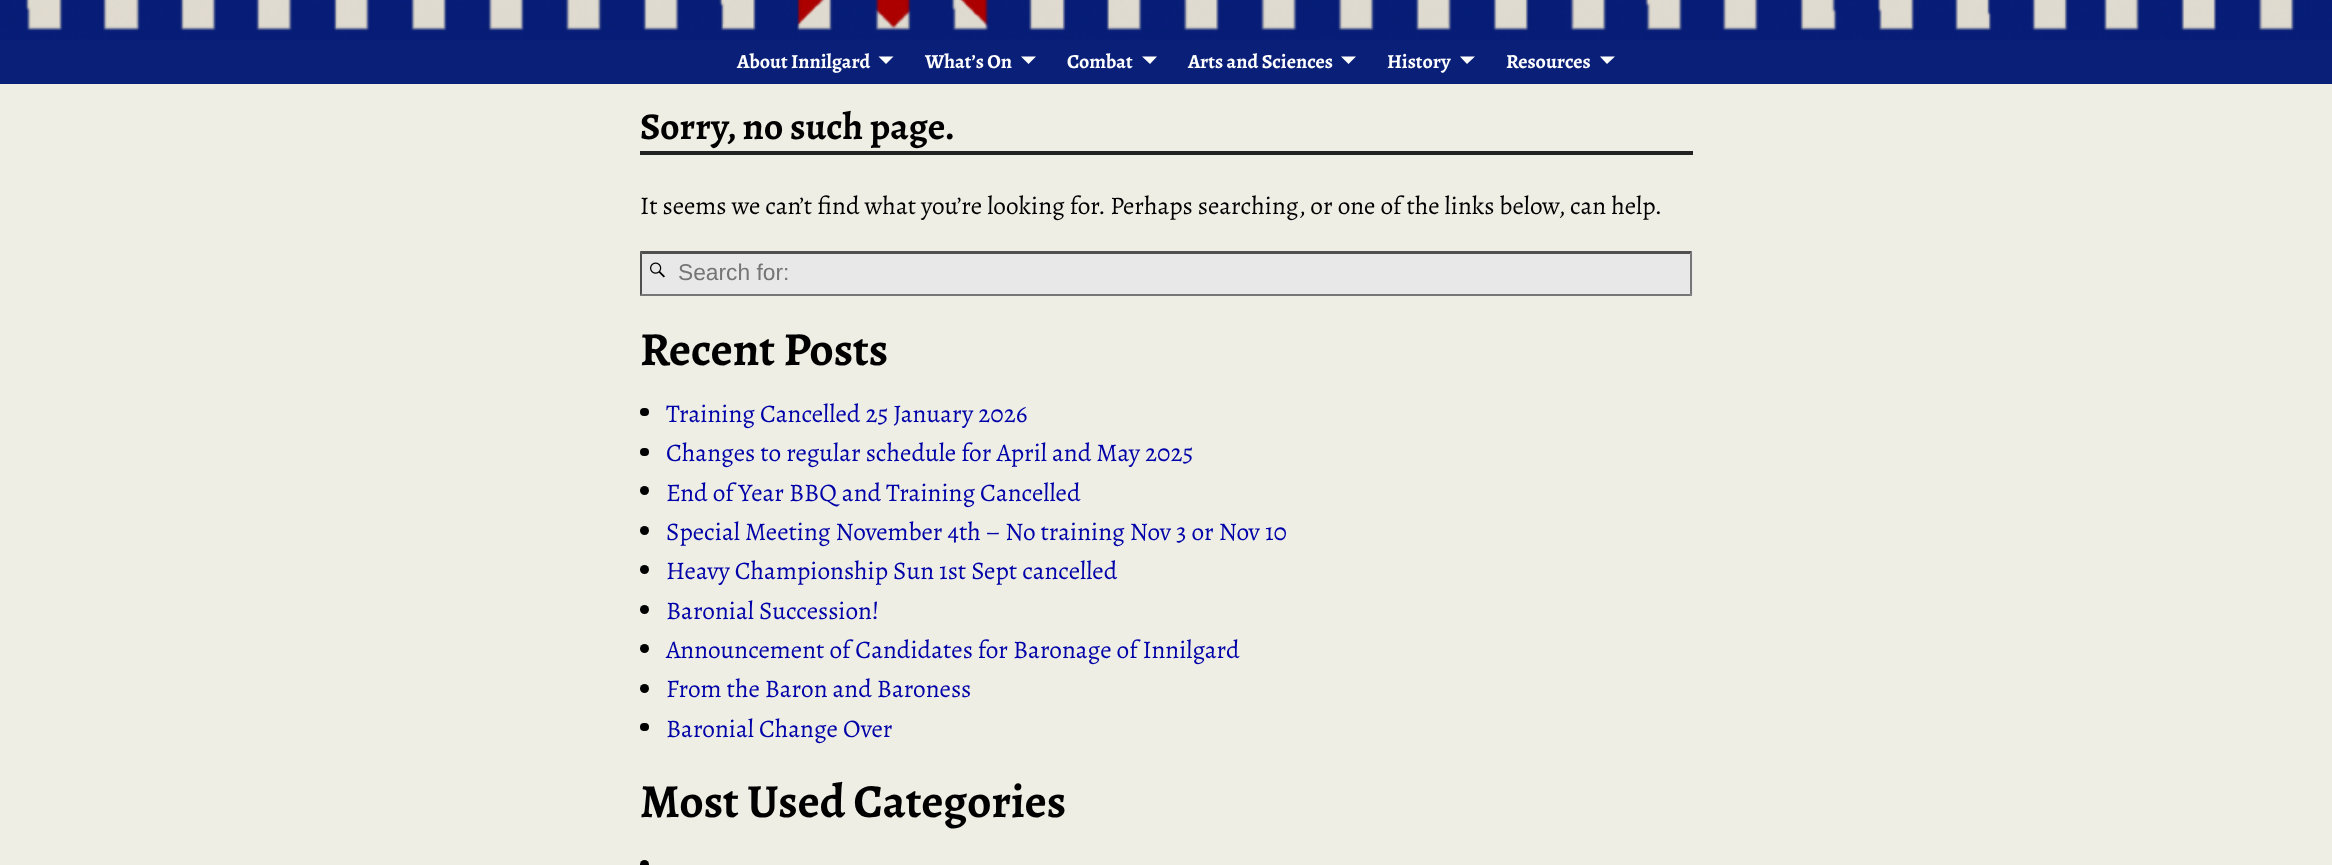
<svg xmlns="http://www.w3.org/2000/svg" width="2332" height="865">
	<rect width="100%" height="100%" fill="#EEEEE5" />
	<image x="0" y="0" width="2332" height="40" href="assets/img1.png" />
	<rect x="0" y="40" width="2332" height="44" fill="#0A2078" />
	<text x="737" y="68" font-family="Alegreya" font-size="20" font-weight="700" fill="#FFFFFF">About Innilgard</text>
	<path d="M878.5 56.5H893.5L886 64Z" fill="#FFFFFF" />
	<text x="925" y="68" font-family="Alegreya" font-size="20" font-weight="700" fill="#FFFFFF">What’s On</text>
	<path d="M1021 56.5H1036L1028.5 64Z" fill="#FFFFFF" />
	<text x="1067" y="68" font-family="Alegreya" font-size="20" font-weight="700" fill="#FFFFFF">Combat</text>
	<path d="M1142 56.5H1157L1150 64Z" fill="#FFFFFF" />
	<text x="1188" y="68" font-family="Alegreya" font-size="20" font-weight="700" fill="#FFFFFF">Arts and Sciences</text>
	<path d="M1341 56.5H1356L1348.5 64Z" fill="#FFFFFF" />
	<text x="1387" y="68" font-family="Alegreya" font-size="20" font-weight="700" fill="#FFFFFF">History</text>
	<path d="M1460 56.5H1475L1467 64Z" fill="#FFFFFF" />
	<text x="1506" y="68" font-family="Alegreya" font-size="20" font-weight="700" fill="#FFFFFF">Resources</text>
	<path d="M1600 56.5H1615L1607 64Z" fill="#FFFFFF" />
	<rect x="640" y="151" width="1053" height="4" fill="#222222" />
	<text x="640" y="139" font-family="Alegreya" font-size="38" font-weight="700" fill="#000000">Sorry, no such page.</text>
	<text x="640" y="214" font-family="Alegreya" font-size="25.3" fill="#000000">It seems we can’t find what you’re looking for. Perhaps searching, or one of the links below, can help.</text>
	<rect x="640" y="251" width="1053" height="45" fill="#E8E8E8" />
	<image x="650" y="262" width="15" height="16" href="assets/img2.png" />
	<path d="M640 251H1692L1690 254H642Z" fill="#4F4F4F" />
	<path d="M1692 251V296L1690 294V254Z" fill="#767676" />
	<path d="M1692 296H640L642 294H1690Z" fill="#767676" />
	<path d="M640 296V251L642 254V294Z" fill="#4F4F4F" />
	<text x="678" y="280" font-family="Liberation Sans" font-size="22.75" fill="#757575">Search for:</text>
	<text x="640" y="365" font-family="Alegreya" font-size="47.5" font-weight="700" fill="#000000">Recent Posts</text>
	<rect x="640" y="408" width="9" height="8" rx="4" fill="#000000" />
	<text x="666" y="422" font-family="Alegreya" font-size="25.3" fill="#0000A8">Training Cancelled 25 January 2026</text>
	<rect x="640" y="448" width="9" height="8" rx="4" fill="#000000" />
	<text x="666" y="461" font-family="Alegreya" font-size="25.3" fill="#0000A8">Changes to regular schedule for April and May 2025</text>
	<circle cx="644.5" cy="490.5" r="4.5" fill="#000000" />
	<text x="666" y="501" font-family="Alegreya" font-size="25.3" fill="#0000A8">End of Year BBQ and Training Cancelled</text>
	<circle cx="644.5" cy="530.5" r="4.5" fill="#000000" />
	<text x="666" y="540" font-family="Alegreya" font-size="25.3" fill="#0000A8">Special Meeting November 4th – No training Nov 3 or Nov 10</text>
	<circle cx="644.5" cy="569.5" r="4.5" fill="#000000" />
	<text x="666" y="579" font-family="Alegreya" font-size="25.3" fill="#0000A8">Heavy Championship Sun 1st Sept cancelled</text>
	<circle cx="644.5" cy="609.5" r="4.5" fill="#000000" />
	<text x="666" y="619" font-family="Alegreya" font-size="25.3" fill="#0000A8">Baronial Succession!</text>
	<circle cx="644.5" cy="648.5" r="4.5" fill="#000000" />
	<text x="666" y="658" font-family="Alegreya" font-size="25.3" fill="#0000A8">Announcement of Candidates for Baronage of Innilgard</text>
	<circle cx="644.5" cy="688.5" r="4.5" fill="#000000" />
	<text x="666" y="697" font-family="Alegreya" font-size="25.3" fill="#0000A8">From the Baron and Baroness</text>
	<rect x="640" y="723" width="9" height="8" rx="4" fill="#000000" />
	<text x="666" y="737" font-family="Alegreya" font-size="25.3" fill="#0000A8">Baronial Change Over</text>
	<text x="640" y="817" font-family="Alegreya" font-size="47.5" font-weight="700" fill="#000000">Most Used Categories</text>
	<circle cx="644.5" cy="864.5" r="4.5" fill="#000000" />
</svg>
